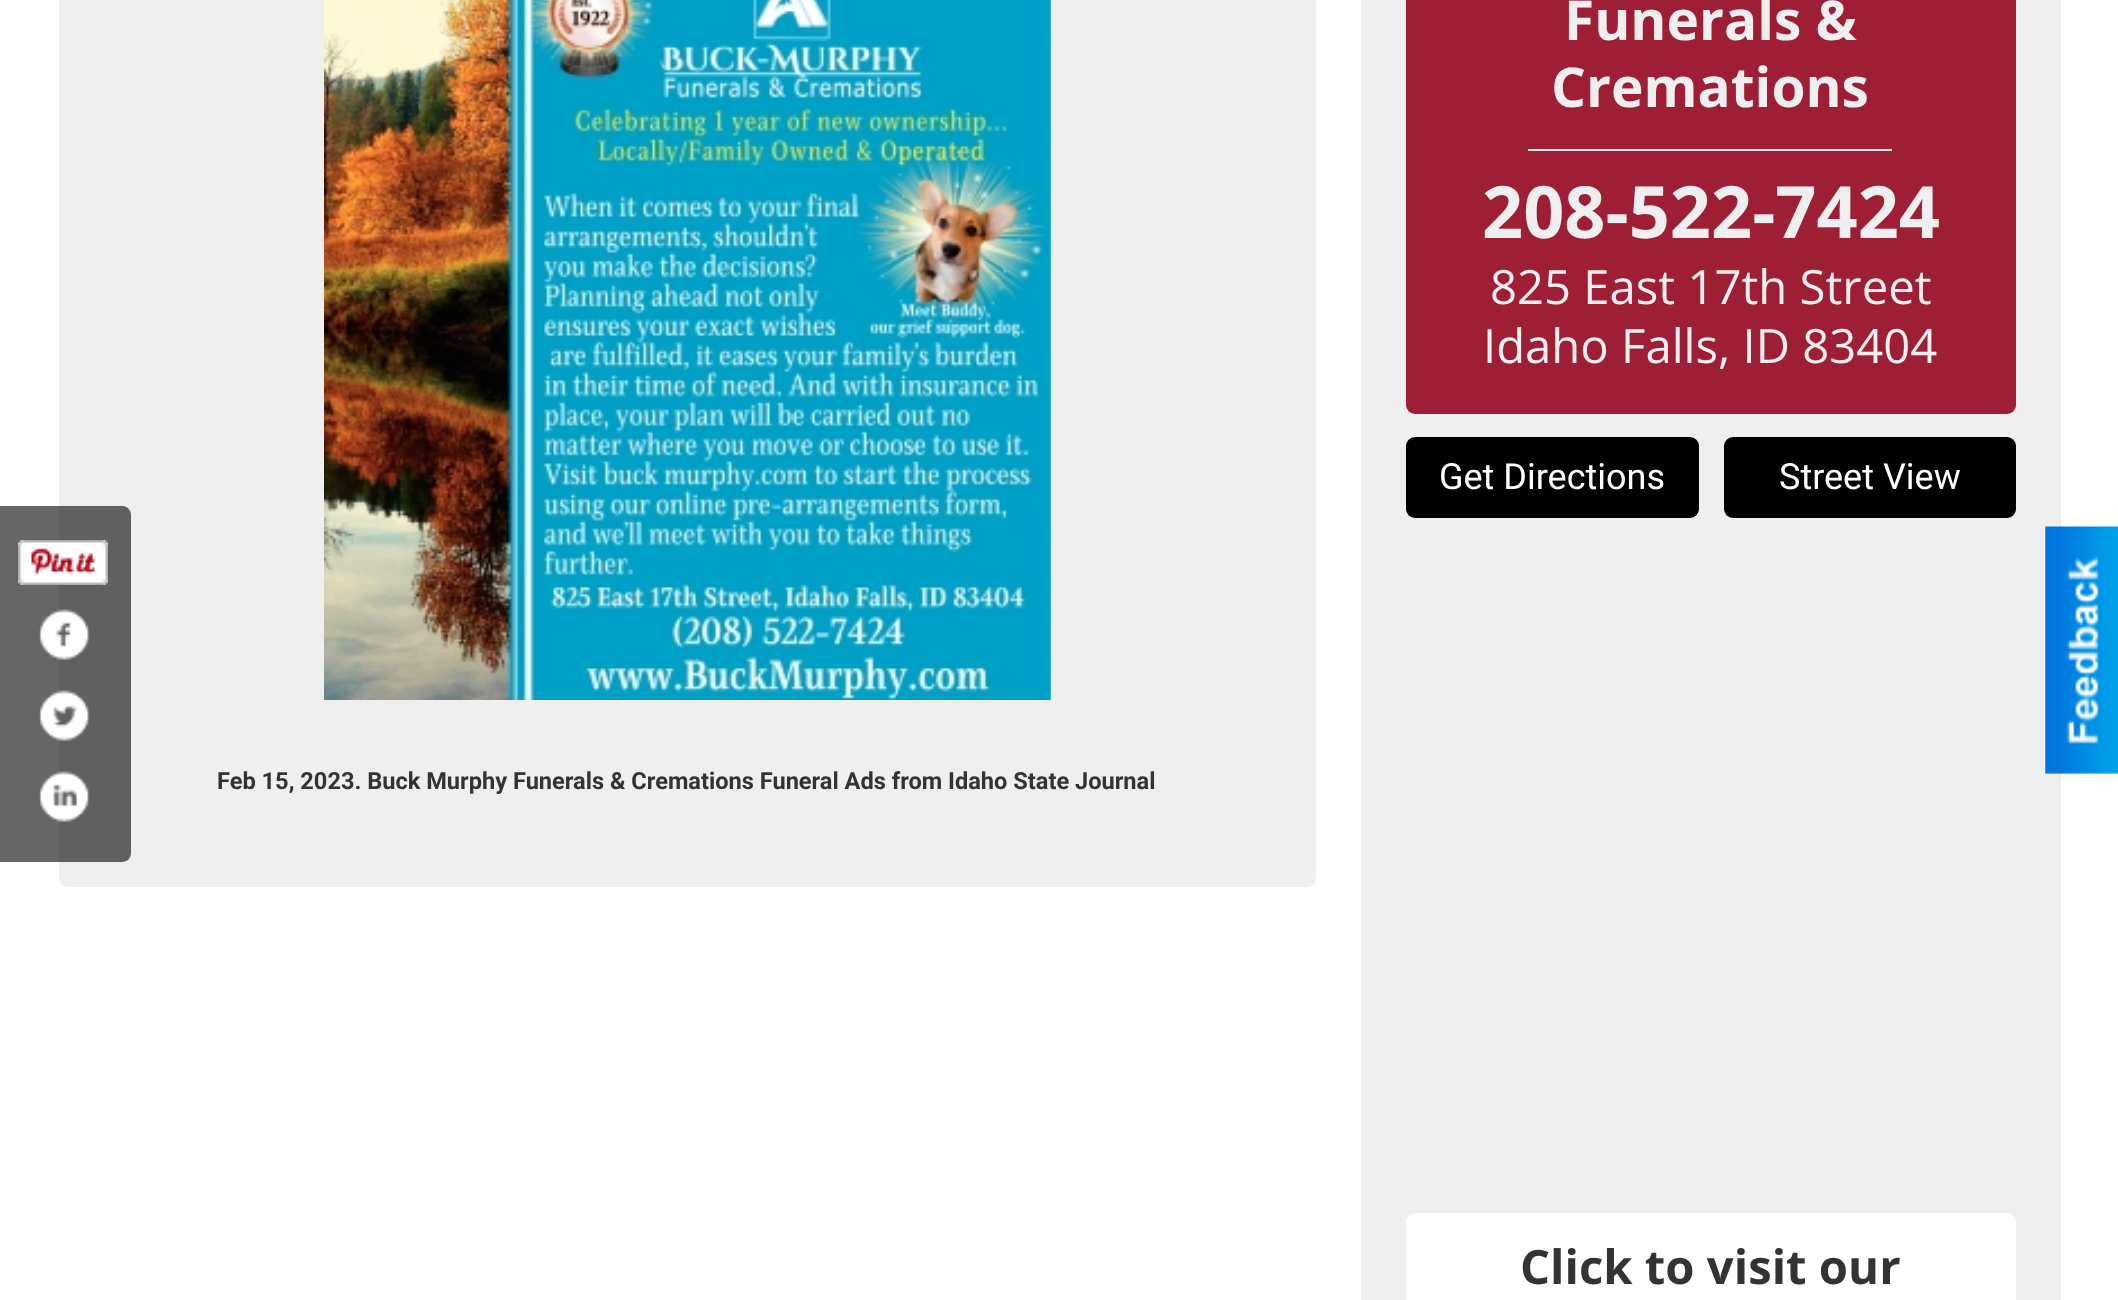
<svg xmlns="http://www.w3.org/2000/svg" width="2118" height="1300">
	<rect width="100%" height="100%" fill="#FFFFFF" />
	<rect x="59" y="-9" width="1257" height="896" rx="9" fill="#EFEFEF" />
	<path d="M0 506H122C127 506 131 510 131 515V853C131 858 127 862 122 862H0Z" fill="#000000" fill-opacity="0.6" />
	<image x="18" y="540" width="90" height="45" href="assets/img1.png" />
	<image x="38" y="609" width="52" height="51" href="assets/img2.png" />
	<image x="38" y="690" width="52" height="51" href="assets/img3.png" />
	<image x="38" y="771" width="52" height="51" href="assets/img4.png" />
	<image x="324" y="0" width="727" height="700" href="assets/img5.png" />
	<text x="217" y="789" font-family="Roboto" font-size="23.6" font-weight="700" fill="#333333">Feb 15, 2023. Buck Murphy Funerals &amp; Cremations Funeral Ads from Idaho State Journal</text>
	<rect x="1361" y="0" width="700" height="1300" fill="#EFEFEF" />
	<rect x="1406" y="-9" width="610" height="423" rx="9" fill="#9D1E35" />
	<g font-family="Open Sans" font-size="55" font-weight="700" fill="#EFEFEF">
		<text x="1564" y="40">Funerals &amp;</text>
		<text x="1551" y="107">Cremations</text>
	</g>
	<rect x="1528" y="149" width="364" height="2" fill="#EFEFEF" />
	<text x="1482" y="238" font-family="Open Sans" font-size="72" font-weight="700" fill="#EFEFEF">208-522-7424</text>
	<g font-family="Open Sans" font-size="47.25" fill="#EFEFEF">
		<text x="1490" y="304">825 East 17th Street</text>
		<text x="1483" y="363">Idaho Falls, ID 83404</text>
	</g>
	<rect x="1406" y="437" width="293" height="81" rx="9" fill="#000000" />
	<text x="1439" y="489" font-family="Roboto" font-size="36" fill="#FFFFFF">Get Directions</text>
	<rect x="1724" y="437" width="292" height="81" rx="9" fill="#000000" />
	<text x="1779" y="489" font-family="Roboto" font-size="36" fill="#FFFFFF">Street View</text>
	<rect x="1406" y="1213" width="610" height="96" rx="9" fill="#FFFFFF" />
	<text x="1520" y="1284" font-family="Open Sans" font-size="47.25" font-weight="700" fill="#333333">Click to visit our</text>
	<image x="2045" y="526" width="73" height="248" href="assets/img6.png" />
</svg>
